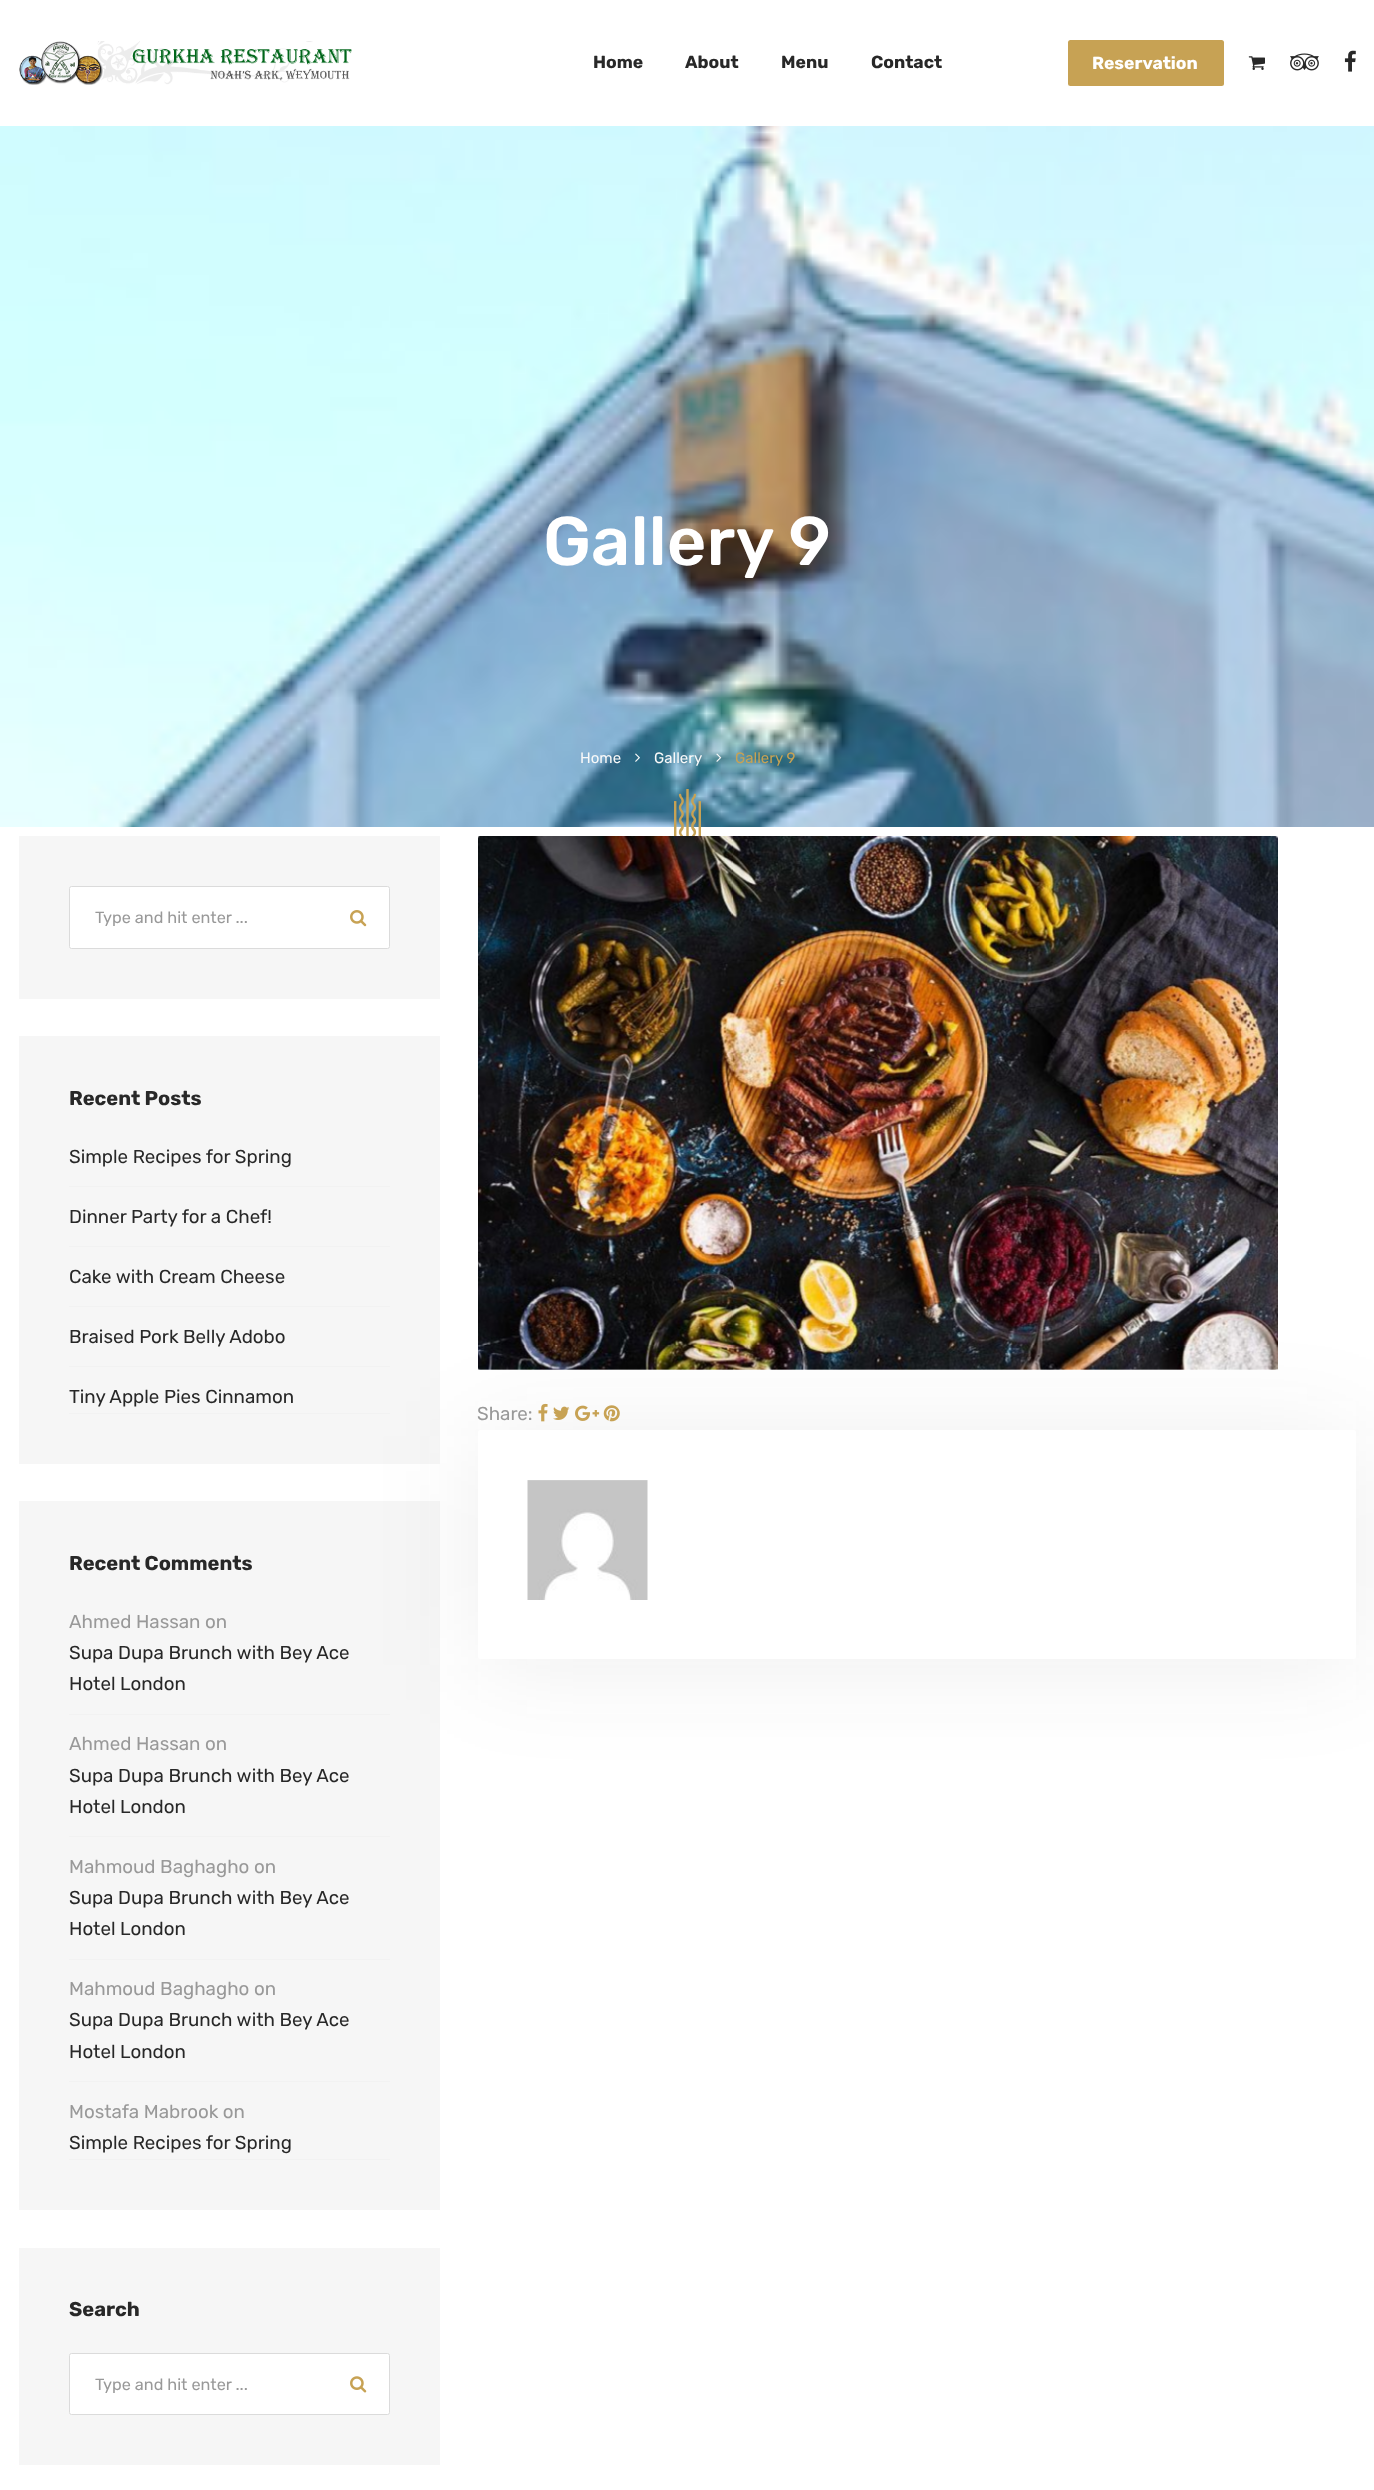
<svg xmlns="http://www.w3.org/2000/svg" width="1374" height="2490">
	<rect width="100%" height="100%" fill="#FFFFFF" />
	<image x="19" y="41" width="333" height="44" href="assets/img1.png" />
	<g font-family="Rubik" font-size="17.5" font-weight="700" fill="#282828">
		<text x="593" y="68">Home</text>
		<text x="685" y="68">About</text>
		<text x="781" y="68">Menu</text>
		<text x="871" y="68">Contact</text>
	</g>
	<rect x="1068" y="40" width="156" height="46" rx="2.5" fill="#C7A254" />
	<text x="1092" y="69" font-family="Rubik" font-size="17.5" font-weight="700" fill="#FFFFFF">Reservation</text>
	<image x="1248" y="56" width="17" height="14" href="assets/img2.png" />
	<image x="1290" y="53" width="29" height="18" href="assets/img3.png" />
	<image x="1344" y="50" width="12" height="22" href="assets/img4.png" />
	<image x="0" y="126" width="1374" height="701" href="assets/img5.png" />
	<text x="543" y="565" font-family="Rubik" font-size="68.75" font-weight="500" fill="#FFFFFF">Gallery 9</text>
	<text x="580" y="763" font-family="Rubik" font-size="15" fill="#F9F9F9">Home</text>
	<image x="635" y="753" width="5" height="9" href="assets/img6.png" />
	<text x="654" y="763" font-family="Rubik" font-size="15" fill="#F9F9F9">Gallery</text>
	<image x="716" y="753" width="6" height="9" href="assets/img7.png" />
	<text x="735" y="763" font-family="Rubik" font-size="15" fill="#C7A254">Gallery 9</text>
	<image x="674" y="789" width="27" height="47" href="assets/img8.png" />
	<rect x="19" y="836" width="421" height="163" fill="#F6F6F6" />
	<rect x="69.5" y="886.5" width="320" height="62" rx="2" fill="#FFFFFF" stroke="#DBDBDB" />
	<text x="95" y="923" font-family="Rubik" font-size="16.25" fill="#999999">Type and hit enter ...</text>
	<image x="350" y="910" width="17" height="17" href="assets/img9.png" />
	<rect x="19" y="1036" width="421" height="428" fill="#F6F6F6" />
	<text x="69" y="1105" font-family="Rubik" font-size="20" font-weight="700" fill="#282828">Recent Posts</text>
	<rect x="69" y="1186" width="321" height="1" fill="#F2F2F2" />
	<text x="69" y="1163" font-family="Rubik" font-size="18.75" fill="#282828">Simple Recipes for Spring</text>
	<rect x="69" y="1246" width="321" height="1" fill="#F2F2F2" />
	<text x="69" y="1223" font-family="Rubik" font-size="18.75" fill="#282828">Dinner Party for a Chef!</text>
	<rect x="69" y="1306" width="321" height="1" fill="#F2F2F2" />
	<text x="69" y="1283" font-family="Rubik" font-size="18.75" fill="#282828">Cake with Cream Cheese</text>
	<rect x="69" y="1366" width="321" height="1" fill="#F2F2F2" />
	<text x="69" y="1343" font-family="Rubik" font-size="18.75" fill="#282828">Braised Pork Belly Adobo</text>
	<rect x="69" y="1413" width="321" height="1" fill="#F2F2F2" />
	<text x="69" y="1403" font-family="Rubik" font-size="18.75" fill="#282828">Tiny Apple Pies Cinnamon</text>
	<rect x="19" y="1501" width="421" height="709" fill="#F6F6F6" />
	<text x="69" y="1570" font-family="Rubik" font-size="20" font-weight="700" fill="#282828">Recent Comments</text>
	<rect x="69" y="1714" width="321" height="1" fill="#F2F2F2" />
	<text x="69" y="1628" font-family="Rubik" font-size="18.75" fill="#999999">Ahmed Hassan on</text>
	<g font-family="Rubik" font-size="18.75" fill="#282828">
		<text x="69" y="1659">Supa Dupa Brunch with Bey Ace</text>
		<text x="69" y="1690">Hotel London</text>
	</g>
	<rect x="69" y="1836" width="321" height="1" fill="#F2F2F2" />
	<text x="69" y="1750" font-family="Rubik" font-size="18.75" fill="#999999">Ahmed Hassan on</text>
	<g font-family="Rubik" font-size="18.75" fill="#282828">
		<text x="69" y="1782">Supa Dupa Brunch with Bey Ace</text>
		<text x="69" y="1813">Hotel London</text>
	</g>
	<rect x="69" y="1959" width="321" height="1" fill="#F2F2F2" />
	<text x="69" y="1873" font-family="Rubik" font-size="18.75" fill="#999999">Mahmoud Baghagho on</text>
	<g font-family="Rubik" font-size="18.75" fill="#282828">
		<text x="69" y="1904">Supa Dupa Brunch with Bey Ace</text>
		<text x="69" y="1935">Hotel London</text>
	</g>
	<rect x="69" y="2081" width="321" height="1" fill="#F2F2F2" />
	<text x="69" y="1995" font-family="Rubik" font-size="18.75" fill="#999999">Mahmoud Baghagho on</text>
	<g font-family="Rubik" font-size="18.75" fill="#282828">
		<text x="69" y="2026">Supa Dupa Brunch with Bey Ace</text>
		<text x="69" y="2058">Hotel London</text>
	</g>
	<rect x="69" y="2159" width="321" height="1" fill="#F2F2F2" />
	<text x="69" y="2118" font-family="Rubik" font-size="18.75" fill="#999999">Mostafa Mabrook on</text>
	<text x="69" y="2149" font-family="Rubik" font-size="18.75" fill="#282828">Simple Recipes for Spring</text>
	<rect x="19" y="2248" width="421" height="217" fill="#F6F6F6" />
	<text x="69" y="2316" font-family="Rubik" font-size="20" font-weight="700" fill="#282828">Search</text>
	<rect x="69.5" y="2353.5" width="320" height="61" rx="2" fill="#FFFFFF" stroke="#DBDBDB" />
	<text x="95" y="2390" font-family="Rubik" font-size="16.25" fill="#999999">Type and hit enter ...</text>
	<image x="350" y="2376" width="17" height="17" href="assets/img10.png" />
	<rect x="478" y="1436" width="878" height="229" rx="2.5" fill="#282828" fill-opacity="0.08" filter="blur(52px)" />
	<image x="478" y="836" width="800" height="534" href="assets/img11.png" />
	<rect x="478" y="1430" width="878" height="229" rx="2.5" fill="#FFFFFF" />
	<image x="527" y="1480" width="121" height="120" href="assets/img12.png" />
	<text x="477" y="1420" font-family="Rubik" font-size="18.75" fill="#999999">Share:</text>
	<image x="538" y="1403" width="10" height="19" href="assets/img13.png" />
	<image x="553" y="1406" width="17" height="14" href="assets/img14.png" />
	<image x="575" y="1405" width="25" height="16" href="assets/img15.png" />
	<image x="603" y="1405" width="17" height="17" href="assets/img16.png" />
</svg>
